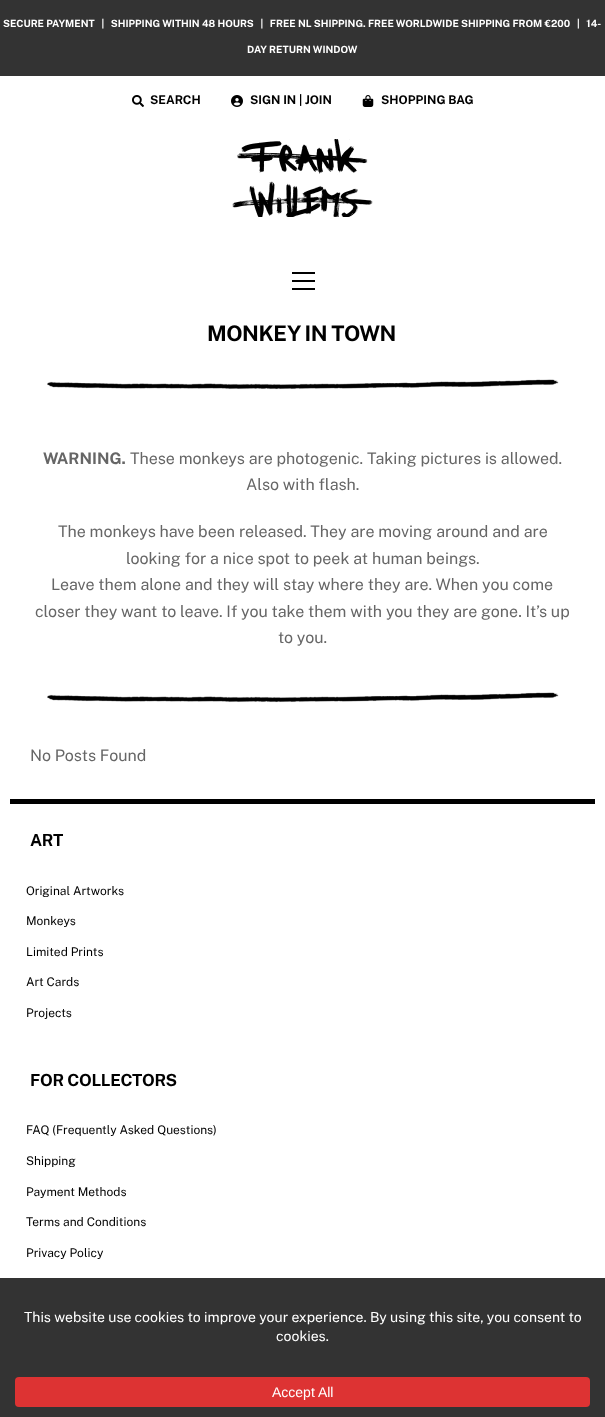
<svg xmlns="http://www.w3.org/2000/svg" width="605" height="1417">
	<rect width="100%" height="100%" fill="#FFFFFF" />
	<rect x="0" y="0" width="605" height="76" fill="#333333" />
	<g font-family="Public Sans" font-size="10" font-weight="700" fill="#FFFFFF">
		<text x="3" y="27" xml:space="preserve">SECURE PAYMENT   |   SHIPPING WITHIN 48 HOURS   |   FREE NL SHIPPING. FREE WORLDWIDE SHIPPING FROM €200   |   14-</text>
		<text x="247" y="53">DAY RETURN WINDOW</text>
	</g>
	<image x="132" y="95" width="12" height="12" href="assets/img1.png" />
	<text x="150" y="104" font-family="Public Sans" font-size="12" font-weight="700" fill="#000000">SEARCH</text>
	<image x="231" y="95" width="12" height="12" href="assets/img2.png" />
	<text x="250" y="104" font-family="Public Sans" font-size="12" font-weight="700" fill="#000000">SIGN IN | JOIN</text>
	<image x="362" y="95" width="12" height="12" href="assets/img3.png" />
	<text x="381" y="104" font-family="Public Sans" font-size="12" font-weight="700" fill="#000000">SHOPPING BAG</text>
	<image x="232" y="139" width="141" height="78" href="assets/img4.png" />
	<rect x="292" y="288" width="23" height="2" fill="#000000" />
	<rect x="292" y="272" width="23" height="2" fill="#000000" />
	<rect x="292" y="280" width="23" height="2" fill="#000000" />
	<text x="207" y="341" font-family="Public Sans" font-size="21.5" font-weight="700" letter-spacing="-0.5" fill="#000000">MONKEY IN TOWN</text>
	<image x="47" y="379" width="512" height="11" href="assets/img5.png" />
	<text x="43" y="464" font-family="Public Sans" font-size="16" font-weight="700" fill="#666666">WARNING.</text>
	<g font-family="Public Sans" font-size="16" fill="#666666">
		<text x="130" y="464">These monkeys are photogenic. Taking pictures is allowed.</text>
		<text x="246" y="490">Also with flash.</text>
		<text x="58" y="537">The monkeys have been released. They are moving around and are</text>
		<text x="126" y="564">looking for a nice spot to peek at human beings.</text>
		<text x="51" y="590">Leave them alone and they will stay where they are. When you come</text>
		<text x="35" y="617">closer they want to leave. If you take them with you they are gone. It’s up</text>
		<text x="278" y="643">to you.</text>
	</g>
	<image x="47" y="692" width="512" height="11" href="assets/img5.png" />
	<text x="30" y="761" font-family="Public Sans" font-size="16" fill="#666666">No Posts Found</text>
	<rect x="10" y="799" width="585" height="5" fill="#000000" />
	<text x="30" y="846" font-family="Public Sans" font-size="16.75" font-weight="700" letter-spacing="-0.3" fill="#000000">ART</text>
	<g font-family="Public Sans" font-size="12" fill="#000000">
		<text x="26" y="895">Original Artworks</text>
		<text x="26" y="925">Monkeys</text>
		<text x="26" y="956">Limited Prints</text>
		<text x="26" y="986">Art Cards</text>
		<text x="26" y="1017">Projects</text>
	</g>
	<text x="30" y="1086" font-family="Public Sans" font-size="16.75" font-weight="700" letter-spacing="-0.3" fill="#000000">FOR COLLECTORS</text>
	<g font-family="Public Sans" font-size="12" fill="#000000">
		<text x="26" y="1134">FAQ (Frequently Asked Questions)</text>
		<text x="26" y="1165">Shipping</text>
		<text x="26" y="1196">Payment Methods</text>
		<text x="26" y="1226">Terms and Conditions</text>
		<text x="26" y="1257">Privacy Policy</text>
	</g>
	<rect x="0" y="1278" width="605" height="139" fill="#333333" />
	<g font-family="Public Sans" font-size="14" fill="#FFFFFF">
		<text x="24" y="1322">This website use cookies to improve your experience. By using this site, you consent to</text>
		<text x="276" y="1341">cookies.</text>
	</g>
	<rect x="15" y="1377" width="575" height="30" rx="4" fill="#DD3333" />
	<text x="272" y="1397" font-family="Liberation Sans" font-size="14" fill="#FFFFFF">Accept All</text>
</svg>
